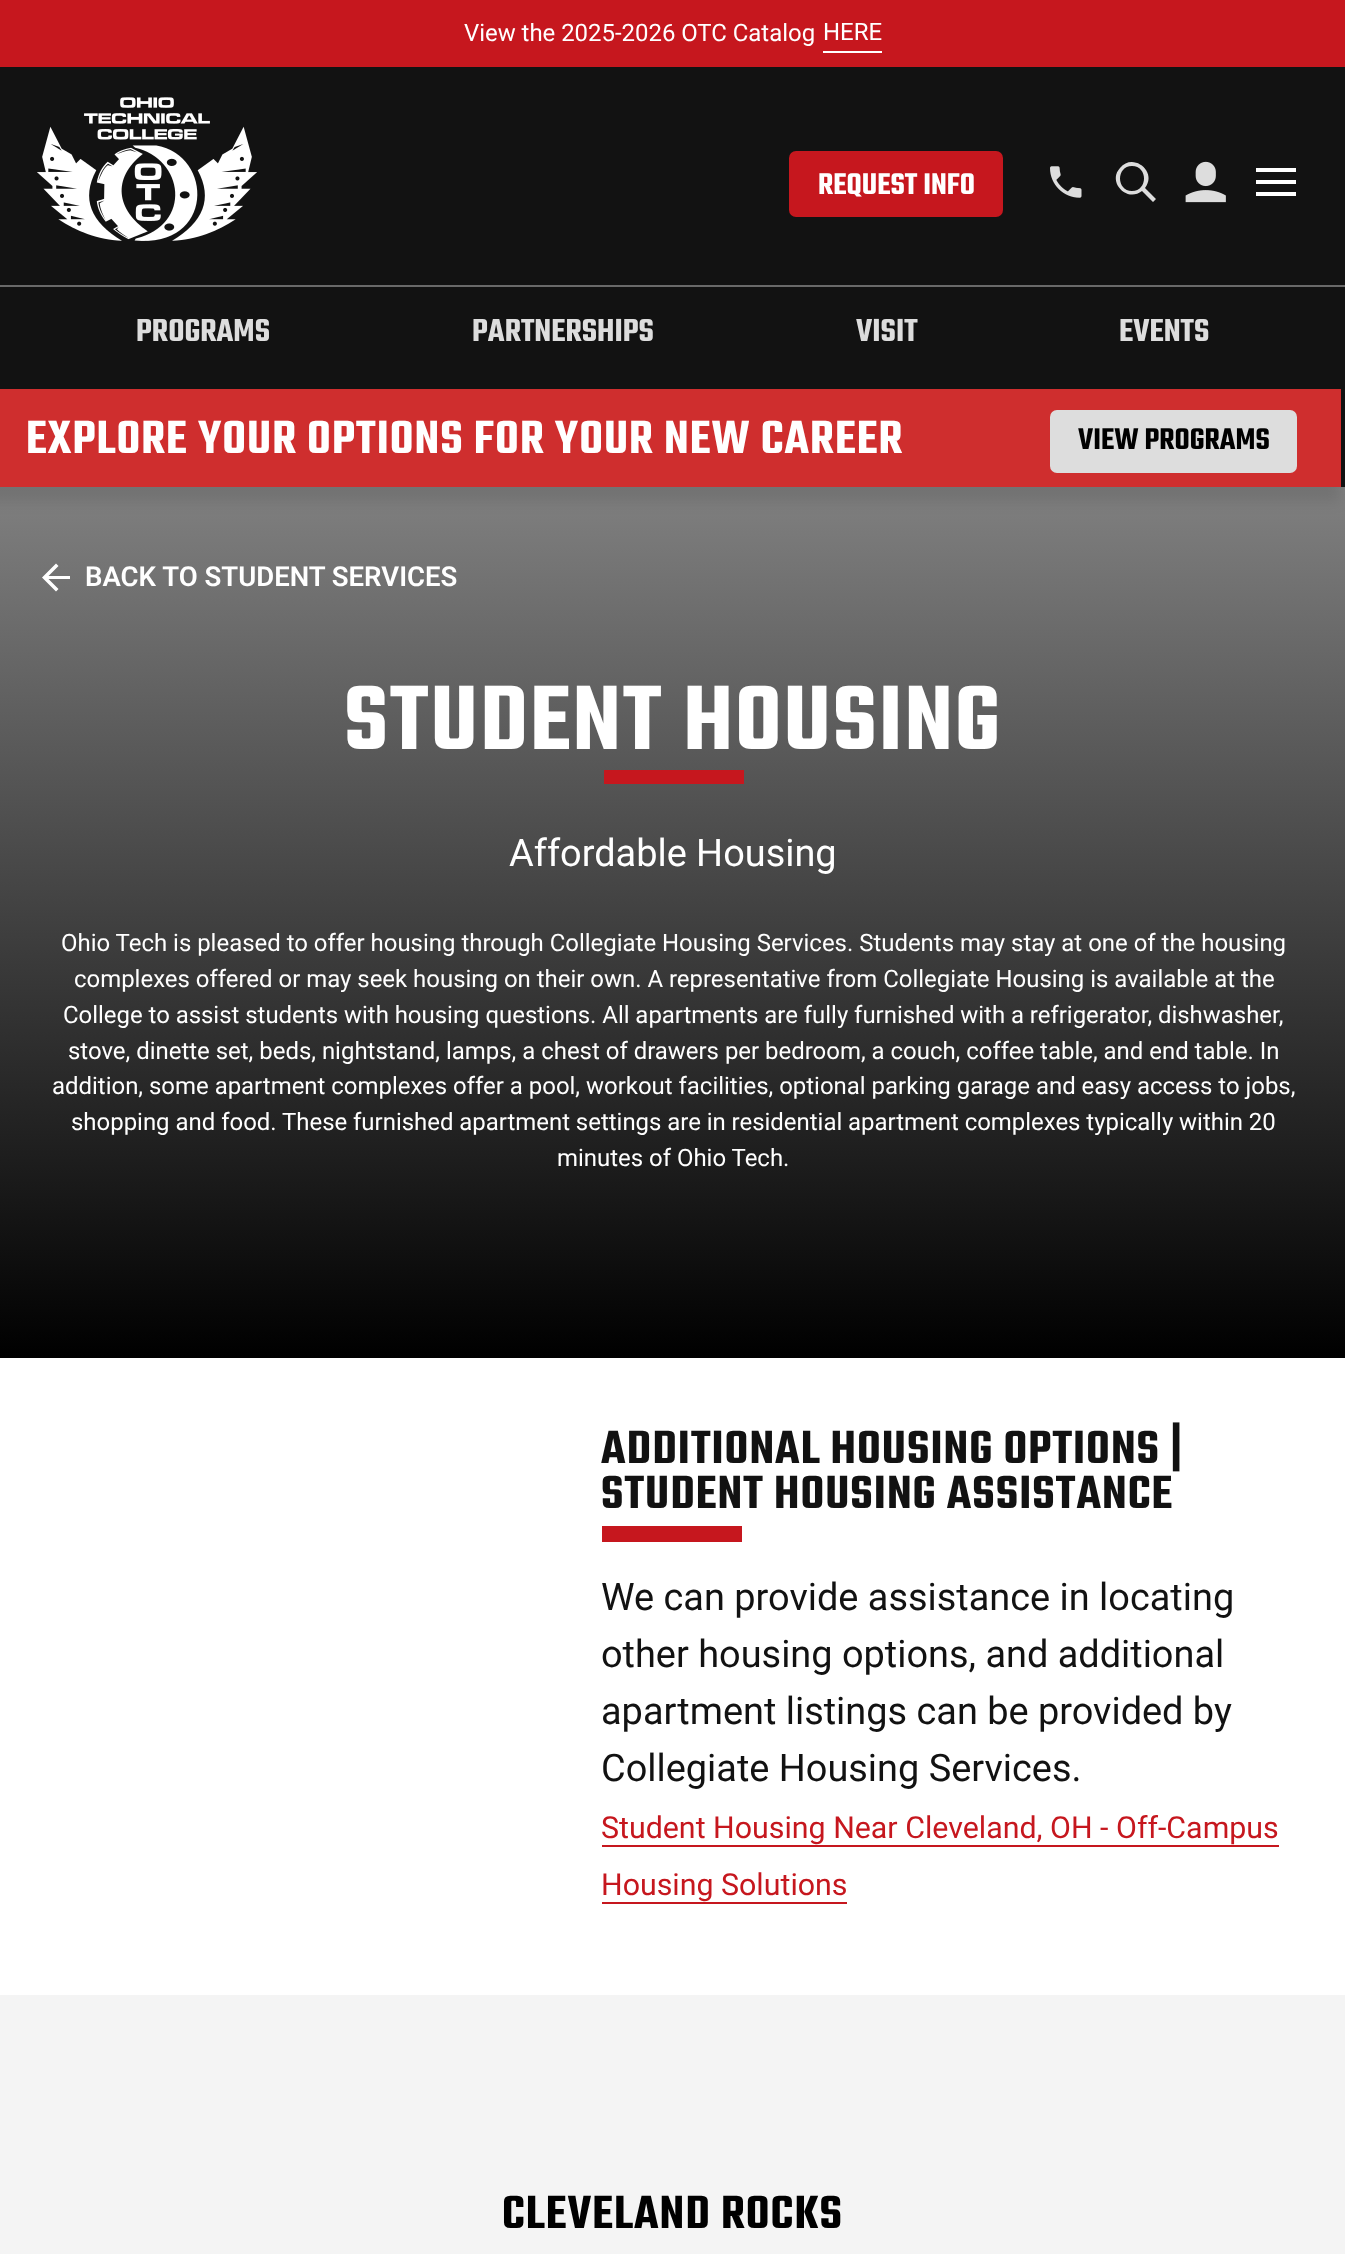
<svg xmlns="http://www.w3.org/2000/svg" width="1345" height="2254">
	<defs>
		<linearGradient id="g1" gradientUnits="userSpaceOnUse" x1="673" y1="486" x2="673" y2="1358"><stop offset="0" stop-color="#808080" /><stop offset="1" stop-color="#000000" /></linearGradient>
	</defs>
	<rect width="100%" height="100%" fill="#FFFFFF" />
	<rect x="0" y="0" width="1345" height="67" fill="#C6171E" />
	<text x="464" y="41" word-spacing="-0.1" font-family="Roboto" font-size="23.95" fill="#FFFFFF">View the 2025-2026 OTC Catalog</text>
	<rect x="823" y="51" width="59" height="2" fill="#FFFFFF" />
	<text x="823" y="40" font-family="Roboto" font-size="23.95" fill="#FFFFFF">HERE</text>
	<rect x="0" y="67" width="1345" height="420" fill="#121212" />
	<image x="37" y="97" width="220" height="144" href="assets/img1.png" />
	<rect x="789" y="151" width="214" height="66" rx="7" fill="#C6171E" />
	<text x="818" y="194" font-family="Teko" font-size="32.5" font-weight="600" fill="#FFFFFF">REQUEST INFO</text>
	<image x="1050" y="166" width="32" height="32" href="assets/img2.png" />
	<path d="M1142 191C1127 203 1107 182 1120 168C1133 152 1158 172 1145 188L1156 199L1153 202ZM1132 191C1148 191 1148 166 1132 166C1116 166 1116 191 1132 191Z" fill="#DDDDDD" />
	<image x="1185" y="161" width="41" height="42" href="assets/img3.png" />
	<path d="M1256 168H1296V172H1256ZM1256 180H1296V184H1256ZM1256 192H1296V196H1256Z" fill="#FFFFFF" />
	<rect x="0" y="285" width="1345" height="2" fill="#696969" />
	<g font-family="Teko" font-size="34.75" font-weight="600" fill="#DDDDDD">
		<text x="136" y="341">PROGRAMS</text>
		<text x="472" y="341">PARTNERSHIPS</text>
		<text x="856" y="341">VISIT</text>
		<text x="1119" y="341">EVENTS</text>
	</g>
	<rect x="0" y="487" width="1345" height="871" fill="url(#g1)" />
	<rect x="-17" y="403" width="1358" height="98" fill="#000000" fill-opacity="0.1" filter="blur(7px)" />
	<rect x="0" y="389" width="1341" height="98" fill="#CF2E2E" />
	<text x="26" y="453" font-family="Teko" font-size="50.8" font-weight="600" letter-spacing="1" fill="#FFFFFF">EXPLORE YOUR OPTIONS FOR YOUR NEW CAREER</text>
	<rect x="1050" y="410" width="247" height="63" rx="7" fill="#DDDDDD" />
	<text x="1078" y="449" font-family="Teko" font-size="32.5" font-weight="600" fill="#000000">VIEW PROGRAMS</text>
	<path d="M70 576H48.5L58.5 566L56 563.5L42 577.5L56 591.5L58.5 589L48.5 579H70Z" fill="#FFFFFF" />
	<text x="85" y="586" font-family="Roboto" font-size="27.5" font-weight="600" fill="#FFFFFF">BACK TO STUDENT SERVICES</text>
	<text x="344" y="749" font-family="Teko" font-size="99.5" font-weight="600" letter-spacing="2" fill="#FFFFFF">STUDENT HOUSING</text>
	<rect x="604" y="770" width="140" height="14" fill="#C6171E" />
	<text x="509" y="866" font-family="Roboto" font-size="37.9" fill="#FFFFFF">Affordable Housing</text>
	<g font-family="Roboto" font-size="23.95" fill="#FFFFFF">
		<text x="61" y="951">Ohio Tech is pleased to offer housing through Collegiate Housing Services. Students may stay at one of the housing</text>
		<text x="74" y="987">complexes offered or may seek housing on their own. A representative from Collegiate Housing is available at the</text>
		<text x="63" y="1023" word-spacing="-0.1">College to assist students with housing questions. All apartments are fully furnished with a refrigerator, dishwasher,</text>
		<text x="68" y="1059">stove, dinette set, beds, nightstand, lamps, a chest of drawers per bedroom, a couch, coffee table, and end table. In</text>
		<text x="52" y="1094">addition, some apartment complexes offer a pool, workout facilities, optional parking garage and easy access to jobs,</text>
		<text x="71" y="1130">shopping and food.</text>
		<text x="282" y="1130" word-spacing="-0.1">These furnished apartment settings are in residential apartment complexes typically within 20</text>
		<text x="557" y="1166">minutes of Ohio Tech.</text>
	</g>
	<g font-family="Teko" font-size="50.8" font-weight="600" letter-spacing="1" fill="#121212">
		<text x="601" y="1463">ADDITIONAL HOUSING OPTIONS |</text>
		<text x="601" y="1508">STUDENT HOUSING ASSISTANCE</text>
	</g>
	<rect x="602" y="1526" width="140" height="16" fill="#C6171E" />
	<g font-family="Roboto" font-size="37.9" fill="#121212">
		<text x="601" y="1610">We can provide assistance in locating</text>
		<text x="601" y="1667">other housing options, and additional</text>
		<text x="601" y="1724">apartment listings can be provided by</text>
		<text x="601" y="1781">Collegiate Housing Services.</text>
	</g>
	<text x="601" y="1838" font-family="Roboto" font-size="30.35" fill="#C6171E">Student Housing Near Cleveland, OH - Off-Campus</text>
	<rect x="602" y="1845" width="677" height="2" fill="#C6171E" />
	<text x="601" y="1895" font-family="Roboto" font-size="30.35" fill="#C6171E">Housing Solutions</text>
	<rect x="602" y="1902" width="245" height="2" fill="#C6171E" />
	<rect x="0" y="1995" width="1345" height="259" fill="#F4F4F4" />
	<text x="502" y="2228" font-family="Teko" font-size="50.8" font-weight="600" letter-spacing="1" fill="#000000">CLEVELAND ROCKS</text>
</svg>
